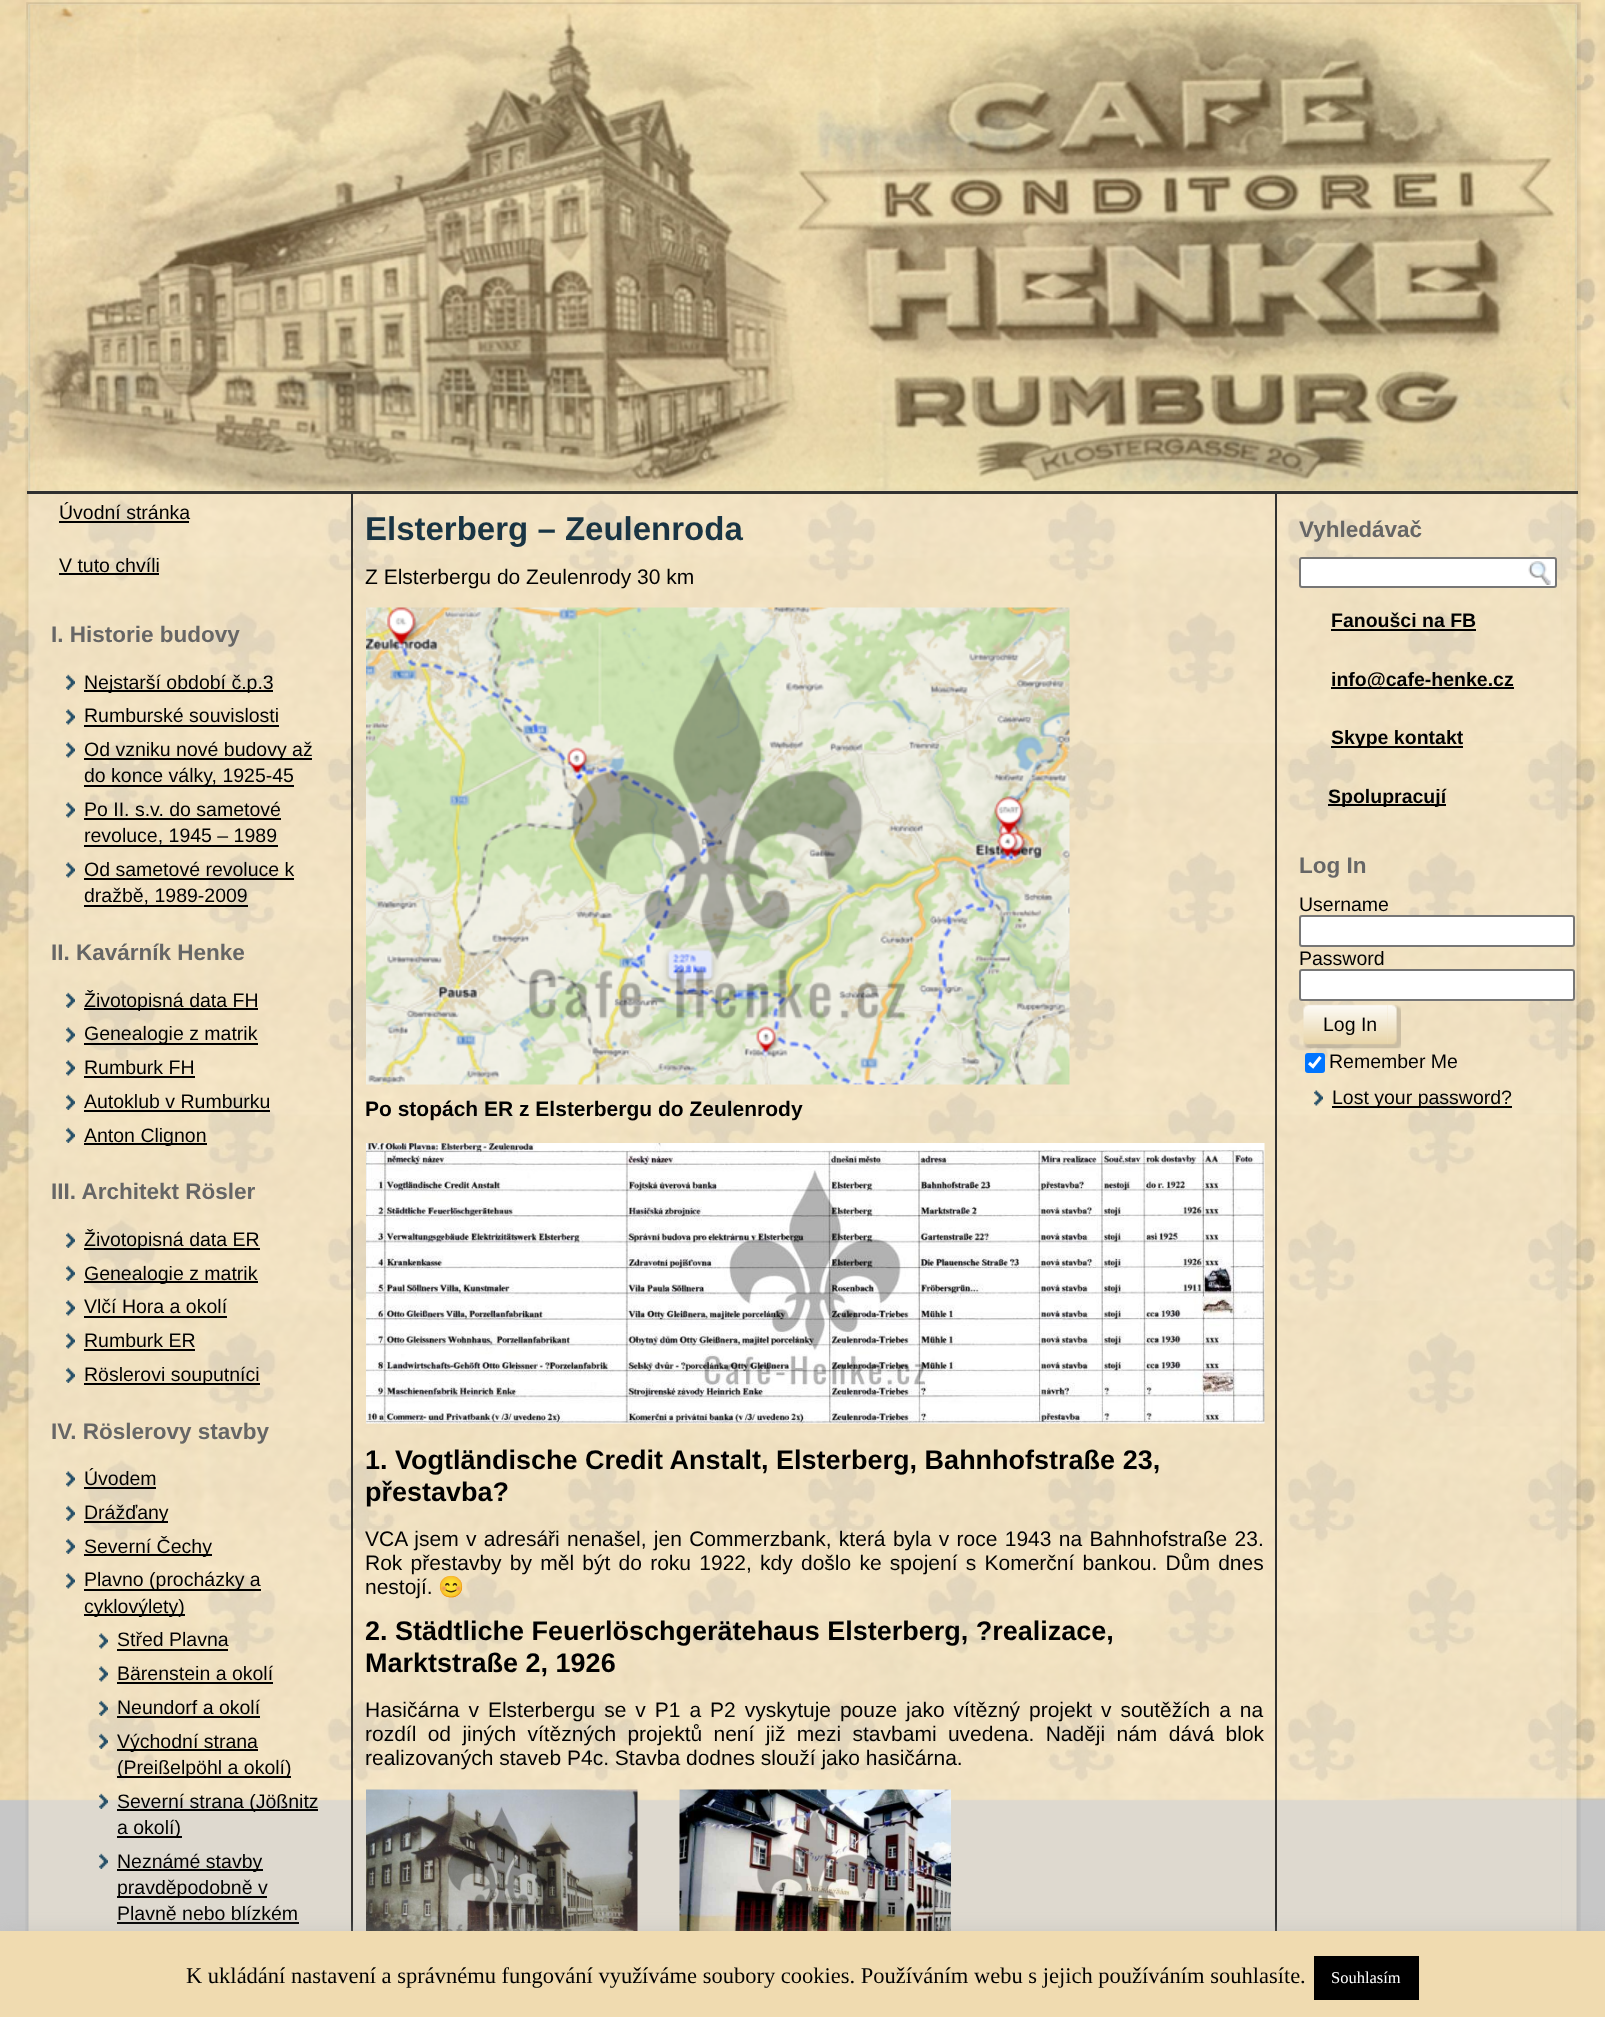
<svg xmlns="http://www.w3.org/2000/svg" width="1605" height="2017">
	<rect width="100%" height="100%" fill="#C7C7C7" />
	<image x="0" y="0" width="1605" height="1801" href="assets/img1.png" />
	<image x="26" y="2" width="1536" height="18" href="assets/img2.png" />
	<image x="26" y="2" width="1536" height="18" href="assets/img3.png" />
	<image x="25" y="19" width="1537" height="1912" href="assets/img7.png" />
	<image x="1561" y="19" width="20" height="1912" href="assets/img8.png" />
	<image x="1561" y="2" width="20" height="18" href="assets/img4.png" />
	<image x="1561" y="2" width="20" height="18" href="assets/img5.png" />
	<image x="28" y="4" width="1549" height="487" href="assets/img6.png" />
	<rect x="351" y="492" width="2" height="1439" fill="#303030" />
	<rect x="1275" y="492" width="2" height="1439" fill="#303030" />
	<rect x="27" y="491" width="1551" height="3" fill="#303030" />
	<text x="59" y="519" font-family="Liberation Sans" font-size="19.5" fill="#000000">Úvodní stránka</text>
	<rect x="59" y="521" width="130" height="2" fill="#000000" />
	<text x="59" y="572" font-family="Liberation Sans" font-size="19.5" fill="#000000">V tuto chvíli</text>
	<rect x="59" y="573" width="100" height="2" fill="#000000" />
	<text x="51" y="642" font-family="Liberation Sans" font-size="22.5" font-weight="700" fill="#666666">I. Historie budovy</text>
	<image x="66" y="674" width="9" height="16" href="assets/img9.png" />
	<rect x="84" y="690" width="189" height="2" fill="#000000" />
	<text x="84" y="689" font-family="Liberation Sans" font-size="19.5" fill="#000000">Nejstarší období č.p.3</text>
	<image x="66" y="709" width="9" height="16" href="assets/img10.png" />
	<text x="84" y="722" font-family="Liberation Sans" font-size="19.5" fill="#000000">Rumburské souvislosti</text>
	<rect x="84" y="725" width="195" height="2" fill="#000000" />
	<image x="66" y="742" width="9" height="16" href="assets/img11.png" />
	<rect x="84" y="758" width="228" height="2" fill="#000000" />
	<text x="84" y="756" font-family="Liberation Sans" font-size="19.5" fill="#000000">Od vzniku nové budovy až</text>
	<rect x="84" y="785" width="210" height="2" fill="#000000" />
	<text x="84" y="782" font-family="Liberation Sans" font-size="19.5" fill="#000000">do konce války, 1925-45</text>
	<image x="66" y="802" width="9" height="16" href="assets/img12.png" />
	<text x="84" y="816" font-family="Liberation Sans" font-size="19.5" fill="#000000">Po II. s.v. do sametové</text>
	<rect x="84" y="818" width="197" height="2" fill="#000000" />
	<text x="84" y="842" font-family="Liberation Sans" font-size="19.5" fill="#000000">revoluce, 1945 – 1989</text>
	<rect x="84" y="845" width="194" height="2" fill="#000000" />
	<image x="66" y="862" width="9" height="16" href="assets/img13.png" />
	<text x="84" y="876" font-family="Liberation Sans" font-size="19.5" fill="#000000">Od sametové revoluce k</text>
	<rect x="84" y="878" width="210" height="2" fill="#000000" />
	<text x="84" y="902" font-family="Liberation Sans" font-size="19.5" fill="#000000">dražbě, 1989-2009</text>
	<rect x="84" y="905" width="164" height="2" fill="#000000" />
	<text x="51" y="960" font-family="Liberation Sans" font-size="22.5" font-weight="700" fill="#666666">II. Kavárník Henke</text>
	<image x="66" y="992" width="9" height="16" href="assets/img14.png" />
	<rect x="84" y="1008" width="174" height="2" fill="#000000" />
	<text x="84" y="1007" font-family="Liberation Sans" font-size="19.5" fill="#000000">Životopisná data FH</text>
	<image x="66" y="1027" width="9" height="16" href="assets/img15.png" />
	<rect x="84" y="1043" width="174" height="2" fill="#000000" />
	<text x="84" y="1040" font-family="Liberation Sans" font-size="19.5" fill="#000000">Genealogie z matrik</text>
	<image x="66" y="1060" width="9" height="16" href="assets/img16.png" />
	<text x="84" y="1074" font-family="Liberation Sans" font-size="19.5" fill="#000000">Rumburk FH</text>
	<rect x="84" y="1076" width="111" height="2" fill="#000000" />
	<image x="66" y="1094" width="9" height="16" href="assets/img17.png" />
	<text x="84" y="1108" font-family="Liberation Sans" font-size="19.5" fill="#000000">Autoklub v Rumburku</text>
	<rect x="84" y="1110" width="186" height="2" fill="#000000" />
	<image x="66" y="1127" width="9" height="16" href="assets/img18.png" />
	<rect x="84" y="1143" width="123" height="2" fill="#000000" />
	<text x="84" y="1142" font-family="Liberation Sans" font-size="19.5" fill="#000000">Anton Clignon</text>
	<text x="51" y="1199" font-family="Liberation Sans" font-size="22.5" font-weight="700" fill="#666666">III. Architekt Rösler</text>
	<image x="66" y="1232" width="9" height="16" href="assets/img19.png" />
	<rect x="84" y="1248" width="176" height="2" fill="#000000" />
	<text x="84" y="1246" font-family="Liberation Sans" font-size="19.5" fill="#000000">Životopisná data ER</text>
	<image x="66" y="1265" width="9" height="16" href="assets/img20.png" />
	<rect x="84" y="1281" width="174" height="2" fill="#000000" />
	<text x="84" y="1280" font-family="Liberation Sans" font-size="19.5" fill="#000000">Genealogie z matrik</text>
	<image x="66" y="1300" width="9" height="16" href="assets/img21.png" />
	<text x="84" y="1313" font-family="Liberation Sans" font-size="19.5" fill="#000000">Vlčí Hora a okolí</text>
	<rect x="84" y="1316" width="143" height="2" fill="#000000" />
	<image x="66" y="1333" width="9" height="16" href="assets/img22.png" />
	<text x="84" y="1347" font-family="Liberation Sans" font-size="19.5" fill="#000000">Rumburk ER</text>
	<rect x="84" y="1349" width="111" height="2" fill="#000000" />
	<image x="66" y="1367" width="9" height="16" href="assets/img23.png" />
	<rect x="84" y="1383" width="176" height="2" fill="#000000" />
	<text x="84" y="1381" font-family="Liberation Sans" font-size="19.5" fill="#000000">Röslerovi souputníci</text>
	<text x="51" y="1439" font-family="Liberation Sans" font-size="22.5" font-weight="700" fill="#666666">IV. Röslerovy stavby</text>
	<image x="66" y="1471" width="9" height="16" href="assets/img24.png" />
	<text x="84" y="1485" font-family="Liberation Sans" font-size="19.5" fill="#000000">Úvodem</text>
	<rect x="84" y="1487" width="72" height="2" fill="#000000" />
	<image x="66" y="1505" width="9" height="16" href="assets/img25.png" />
	<rect x="84" y="1521" width="84" height="2" fill="#000000" />
	<text x="84" y="1519" font-family="Liberation Sans" font-size="19.5" fill="#000000">Drážďany</text>
	<image x="66" y="1538" width="9" height="16" href="assets/img26.png" />
	<rect x="84" y="1554" width="128" height="2" fill="#000000" />
	<text x="84" y="1553" font-family="Liberation Sans" font-size="19.5" fill="#000000">Severní Čechy</text>
	<image x="66" y="1573" width="9" height="16" href="assets/img27.png" />
	<rect x="84" y="1589" width="177" height="2" fill="#000000" />
	<text x="84" y="1586" font-family="Liberation Sans" font-size="19.5" fill="#000000">Plavno (procházky a</text>
	<rect x="84" y="1614" width="101" height="2" fill="#000000" />
	<text x="84" y="1613" font-family="Liberation Sans" font-size="19.5" fill="#000000">cyklovýlety)</text>
	<image x="99" y="1633" width="9" height="16" href="assets/img28.png" />
	<text x="117" y="1646" font-family="Liberation Sans" font-size="19.5" fill="#000000">Střed Plavna</text>
	<rect x="117" y="1649" width="111" height="2" fill="#000000" />
	<image x="99" y="1666" width="9" height="16" href="assets/img29.png" />
	<text x="117" y="1680" font-family="Liberation Sans" font-size="19.5" fill="#000000">Bärenstein a okolí</text>
	<rect x="117" y="1682" width="156" height="2" fill="#000000" />
	<image x="99" y="1700" width="9" height="16" href="assets/img30.png" />
	<text x="117" y="1714" font-family="Liberation Sans" font-size="19.5" fill="#000000">Neundorf a okolí</text>
	<rect x="117" y="1716" width="143" height="2" fill="#000000" />
	<image x="99" y="1733" width="9" height="16" href="assets/img31.png" />
	<rect x="117" y="1749" width="141" height="2" fill="#000000" />
	<text x="117" y="1748" font-family="Liberation Sans" font-size="19.5" fill="#000000">Východní strana</text>
	<rect x="117" y="1776" width="174" height="2" fill="#000000" />
	<text x="117" y="1774" font-family="Liberation Sans" font-size="19.5" fill="#000000">(Preißelpöhl a okolí)</text>
	<image x="99" y="1793" width="9" height="16" href="assets/img32.png" />
	<rect x="117" y="1809" width="201" height="2" fill="#000000" />
	<text x="117" y="1808" font-family="Liberation Sans" font-size="19.5" fill="#000000">Severní strana (Jößnitz</text>
	<rect x="117" y="1836" width="65" height="2" fill="#000000" />
	<text x="117" y="1834" font-family="Liberation Sans" font-size="19.5" fill="#000000">a okolí)</text>
	<image x="99" y="1853" width="9" height="16" href="assets/img33.png" />
	<rect x="117" y="1869" width="146" height="2" fill="#000000" />
	<text x="117" y="1868" font-family="Liberation Sans" font-size="19.5" fill="#000000">Neznámé stavby</text>
	<rect x="117" y="1896" width="150" height="2" fill="#000000" />
	<g font-family="Liberation Sans" font-size="19.5" fill="#000000">
		<text x="117" y="1894">pravděpodobně v</text>
		<text x="117" y="1920">Plavně nebo blízkém</text>
	</g>
	<rect x="117" y="1922" width="182" height="2" fill="#000000" />
	<text x="365" y="540" font-family="Liberation Sans" font-size="33" font-weight="700" fill="#193443">Elsterberg – Zeulenroda</text>
	<text x="365" y="584" font-family="Liberation Sans" font-size="21" fill="#000000">Z Elsterbergu do Zeulenrody 30 km</text>
	<image x="366" y="607" width="704" height="478" href="assets/img34.png" />
	<text x="365" y="1116" font-family="Liberation Sans" font-size="21" font-weight="700" fill="#000000">Po stopách ER z Elsterbergu do Zeulenrody</text>
	<image x="366" y="1143" width="899" height="281" href="assets/img35.png" />
	<g font-family="Liberation Sans" font-size="27" font-weight="700" fill="#000000">
		<text x="365" y="1469">1. Vogtländische Credit Anstalt, Elsterberg, Bahnhofstraße 23,</text>
		<text x="365" y="1501">přestavba?</text>
	</g>
	<g font-family="Liberation Sans" font-size="21" fill="#000000">
		<text x="365" y="1546" word-spacing="1.5">VCA jsem v adresáři nenašel, jen Commerzbank, která byla v roce 1943 na Bahnhofstraße 23.</text>
		<text x="365" y="1570" word-spacing="2.4">Rok přestavby by měl být do roku 1922, kdy došlo ke spojení s Komerční bankou. Dům dnes</text>
		<text x="365" y="1594">nestojí.</text>
	</g>
	<text x="438" y="1594" font-family="Noto Color Emoji" font-size="21" fill="#000000">😊</text>
	<g font-family="Liberation Sans" font-size="27" font-weight="700" fill="#000000">
		<text x="365" y="1640">2. Städtliche Feuerlöschgerätehaus Elsterberg, ?realizace,</text>
		<text x="365" y="1672">Marktstraße 2, 1926</text>
	</g>
	<g font-family="Liberation Sans" font-size="21" fill="#000000">
		<text x="365" y="1717" word-spacing="3.1">Hasičárna v Elsterbergu se v P1 a P2 vyskytuje pouze jako vítězný projekt v soutěžích a na</text>
		<text x="365" y="1741" word-spacing="5.5">rozdíl od jiných vítězných projektů není již mezi stavbami uvedena. Naději nám dává blok</text>
		<text x="365" y="1765">realizovaných staveb P4c. Stavba dodnes slouží jako hasičárna.</text>
	</g>
	<image x="366" y="1789" width="272" height="142" href="assets/img36.png" />
	<image x="679" y="1789" width="272" height="142" href="assets/img37.png" />
	<text x="1299" y="537" font-family="Liberation Sans" font-size="22.5" font-weight="700" fill="#666666">Vyhledávač</text>
	<rect x="1300" y="558" width="256" height="29" rx="2" fill="#FFFFFF" stroke="#767676" stroke-width="2" />
	<image x="1528" y="561" width="23" height="24" href="assets/img38.png" />
	<text x="1331" y="627" font-family="Liberation Sans" font-size="19.5" font-weight="700" fill="#000000">Fanoušci na FB</text>
	<rect x="1331" y="629" width="145" height="2" fill="#000000" />
	<rect x="1331" y="687" width="183" height="2" fill="#000000" />
	<text x="1331" y="686" font-family="Liberation Sans" font-size="19.5" font-weight="700" fill="#000000">info@cafe-henke.cz</text>
	<rect x="1331" y="746" width="132" height="2" fill="#000000" />
	<text x="1331" y="744" font-family="Liberation Sans" font-size="19.5" font-weight="700" fill="#000000">Skype kontakt</text>
	<rect x="1328" y="804" width="118" height="2" fill="#000000" />
	<text x="1328" y="803" font-family="Liberation Sans" font-size="19.5" font-weight="700" fill="#000000">Spolupracují</text>
	<text x="1299" y="873" font-family="Liberation Sans" font-size="22.5" font-weight="700" fill="#666666">Log In</text>
	<text x="1299" y="911" font-family="Liberation Sans" font-size="19.5" fill="#000000">Username</text>
	<rect x="1300" y="916" width="274" height="30" rx="2" fill="#FFFFFF" stroke="#767676" stroke-width="2" />
	<text x="1299" y="965" font-family="Liberation Sans" font-size="19.5" fill="#000000">Password</text>
	<rect x="1300" y="970" width="274" height="30" rx="2" fill="#FFFFFF" stroke="#767676" stroke-width="2" />
	<image x="1303" y="1004" width="85" height="45" href="assets/img39.png" />
	<image x="1387" y="1004" width="14" height="45" href="assets/img40.png" />
	<text x="1323" y="1031" font-family="Liberation Sans" font-size="19.5" fill="#000000">Log In</text>
	<rect x="1305" y="1053" width="20" height="20" rx="3" fill="#0075FF" />
	<path d="M1309 1063L1313 1066.5L1320.5 1057" fill="none" stroke="#FFFFFF" stroke-width="3.1" />
	<text x="1329" y="1068" font-family="Liberation Sans" font-size="19.5" fill="#000000">Remember Me</text>
	<image x="1314" y="1090" width="9" height="16" href="assets/img41.png" />
	<rect x="1332" y="1106" width="180" height="2" fill="#000000" />
	<text x="1332" y="1104" font-family="Liberation Sans" font-size="19.5" fill="#000000">Lost your password?</text>
	<rect x="0" y="1929" width="1605" height="87" fill="#ACABAB" fill-opacity="0.3" filter="blur(7.5px)" />
	<rect x="0" y="1931" width="1605" height="86" fill="#F0DBB0" />
	<text x="186" y="1983" font-family="Liberation Serif" font-size="22.5" fill="#000000">K ukládání nastavení a správnému fungování využíváme soubory cookies. Používáním webu s jejich používáním souhlasíte.</text>
	<rect x="1314" y="1956" width="105" height="44" fill="#000000" />
	<text x="1331" y="1983" font-family="Liberation Serif" font-size="16.5" fill="#FFFFFF">Souhlasím</text>
</svg>
